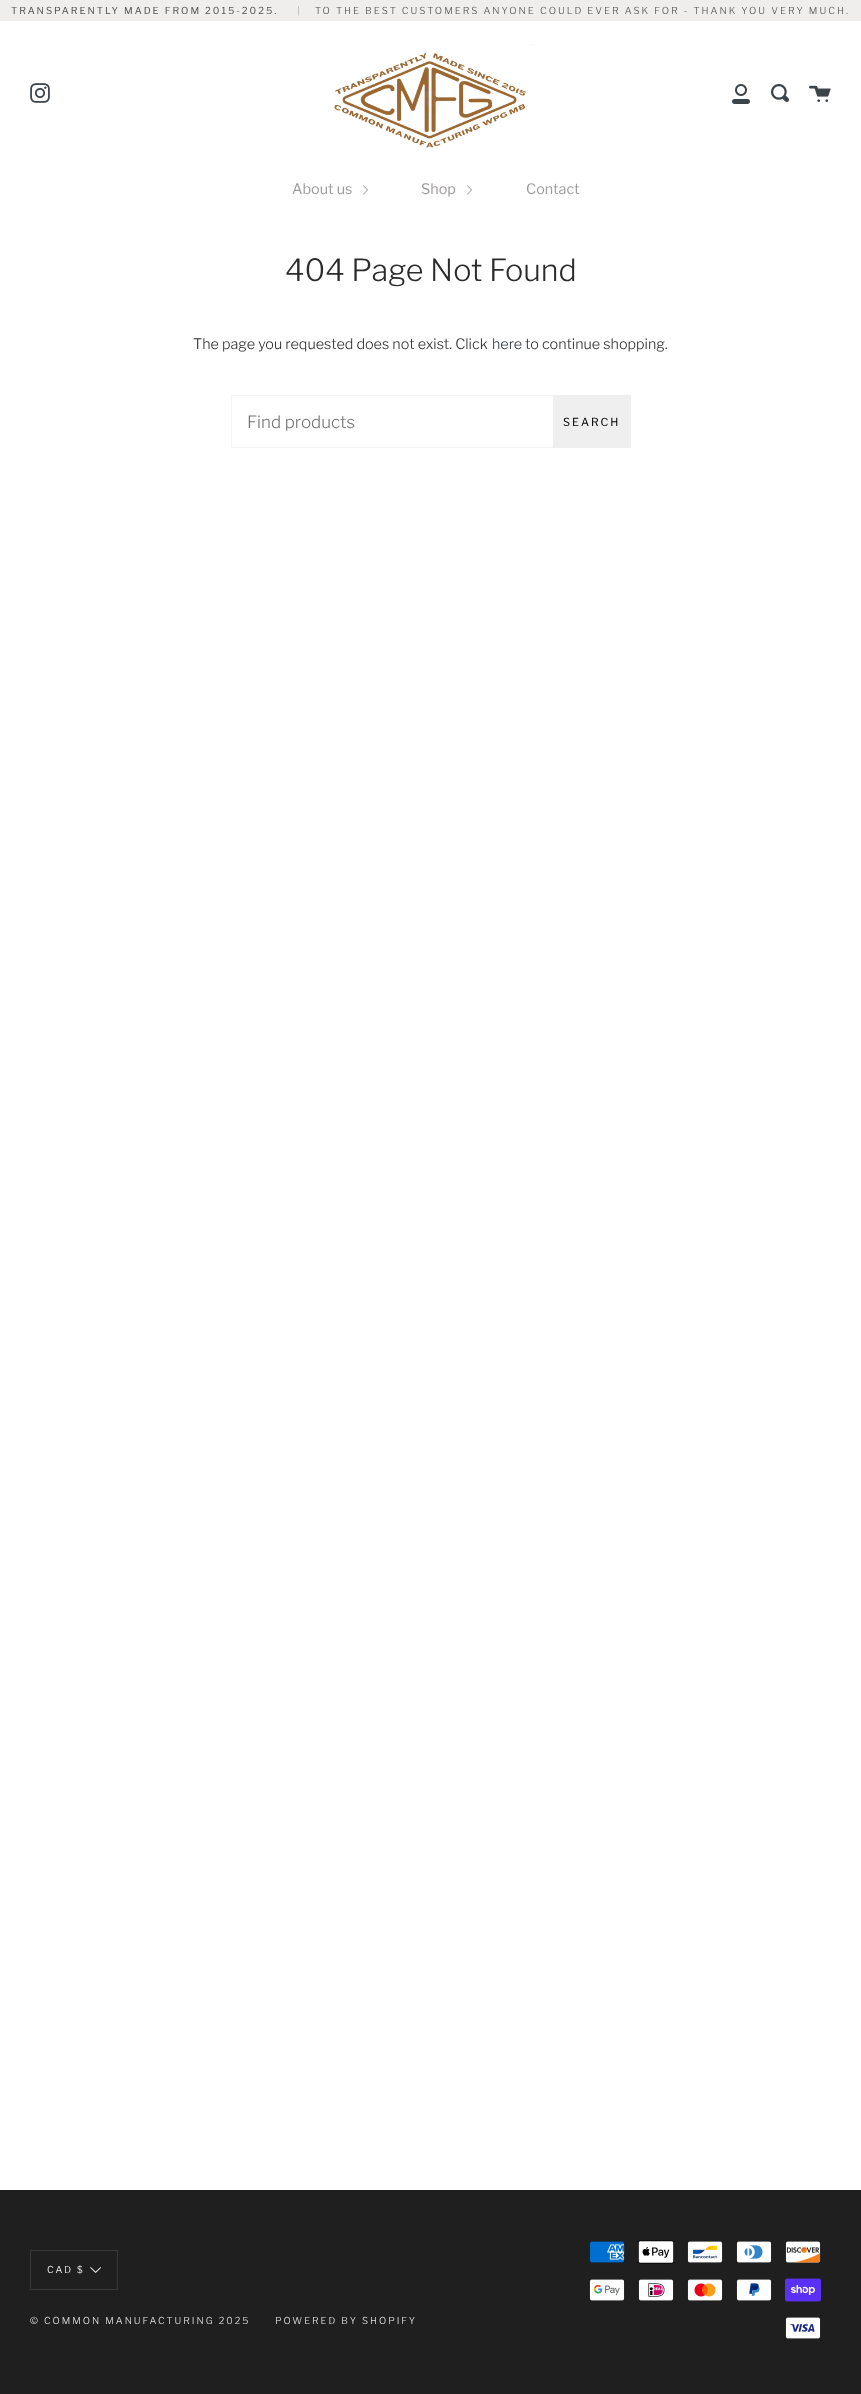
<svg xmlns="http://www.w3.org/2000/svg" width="861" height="2394">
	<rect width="100%" height="100%" fill="#FFFFFF" />
	<rect x="0" y="0" width="861" height="21" fill="#EFEEEC" />
	<text x="11" y="14" font-family="Libre Franklin" font-size="9.6" letter-spacing="2" fill="#545454">TRANSPARENTLY MADE FROM 2015-2025.</text>
	<text x="297" y="14" font-family="Libre Franklin" font-size="9.6" font-weight="300" letter-spacing="2" fill="#A2A1A0">|</text>
	<text x="315" y="14" font-family="Libre Franklin" font-size="9.6" font-weight="300" letter-spacing="2" fill="#545454">TO THE BEST CUSTOMERS ANYONE COULD EVER ASK FOR - THANK YOU VERY MUCH.</text>
	<image x="30" y="83" width="20" height="20" href="assets/img1.png" />
	<image x="334" y="44" width="200" height="104" href="assets/img2.png" />
	<image x="732" y="84" width="18" height="20" href="assets/img3.png" />
	<image x="771" y="84" width="18" height="18" href="assets/img4.png" />
	<image x="809" y="85" width="22" height="17" href="assets/img5.png" />
	<text x="292" y="194" font-family="Libre Franklin" font-size="14.4" fill="#9E9B9B">About us</text>
	<image x="363" y="185" width="5" height="10" href="assets/img6.png" />
	<text x="421" y="194" font-family="Libre Franklin" font-size="14.4" fill="#9E9B9B">Shop</text>
	<image x="467" y="185" width="5" height="10" href="assets/img6.png" />
	<text x="526" y="194" font-family="Libre Franklin" font-size="14.4" fill="#9E9B9B">Contact</text>
	<text x="285" y="281" font-family="Libre Franklin" font-size="30.5" font-weight="300" fill="#2B2B2B">404 Page Not Found</text>
	<text x="193" y="349" font-family="Libre Franklin" font-size="14.4" font-weight="300" fill="#2B2B2B">The page you requested does not exist. Click</text>
	<text x="492" y="349" font-family="Libre Franklin" font-size="14.4" font-weight="300" fill="#2B333B">here</text>
	<text x="525" y="349" font-family="Libre Franklin" font-size="14.4" font-weight="300" fill="#2B2B2B">to continue shopping.</text>
	<rect x="231.5" y="395.5" width="399" height="52" fill="none" stroke="#F3F3F3" />
	<text x="247" y="428" font-family="Libre Franklin" font-size="17" font-weight="300" fill="#757575">Find products</text>
	<rect x="553" y="395" width="78" height="53" fill="#EFEFEF" />
	<text x="563" y="426" font-family="Libre Franklin" font-size="11" letter-spacing="2" fill="#000000">SEARCH</text>
	<rect x="0" y="2190" width="861" height="204" fill="#1F1F1F" />
	<rect x="30.5" y="2250.5" width="87" height="39" fill="none" stroke="#393939" />
	<text x="47" y="2273" font-family="Libre Franklin" font-size="9.5" font-weight="300" letter-spacing="2" fill="#FFFFFF">CAD $</text>
	<image x="90" y="2267" width="11" height="6" href="assets/img7.png" />
	<g font-family="Libre Franklin" font-size="9.5" font-weight="300" letter-spacing="2" fill="#E1E1E1">
		<text x="30" y="2324">© COMMON MANUFACTURING 2025</text>
		<text x="275" y="2324">POWERED BY SHOPIFY</text>
	</g>
	<image x="589" y="2241" width="36" height="22" href="assets/img8.png" />
	<image x="638" y="2240" width="36" height="24" href="assets/img9.png" />
	<image x="687" y="2241" width="36" height="22" href="assets/img10.png" />
	<image x="736" y="2241" width="36" height="22" href="assets/img11.png" />
	<image x="785" y="2241" width="36" height="22" href="assets/img12.png" />
	<image x="589" y="2279" width="36" height="22" href="assets/img13.png" />
	<image x="638" y="2279" width="36" height="22" href="assets/img14.png" />
	<image x="687" y="2279" width="36" height="22" href="assets/img15.png" />
	<image x="736" y="2279" width="36" height="22" href="assets/img16.png" />
	<image x="785" y="2278" width="36" height="24" href="assets/img17.png" />
	<image x="785" y="2317" width="36" height="22" href="assets/img18.png" />
</svg>
